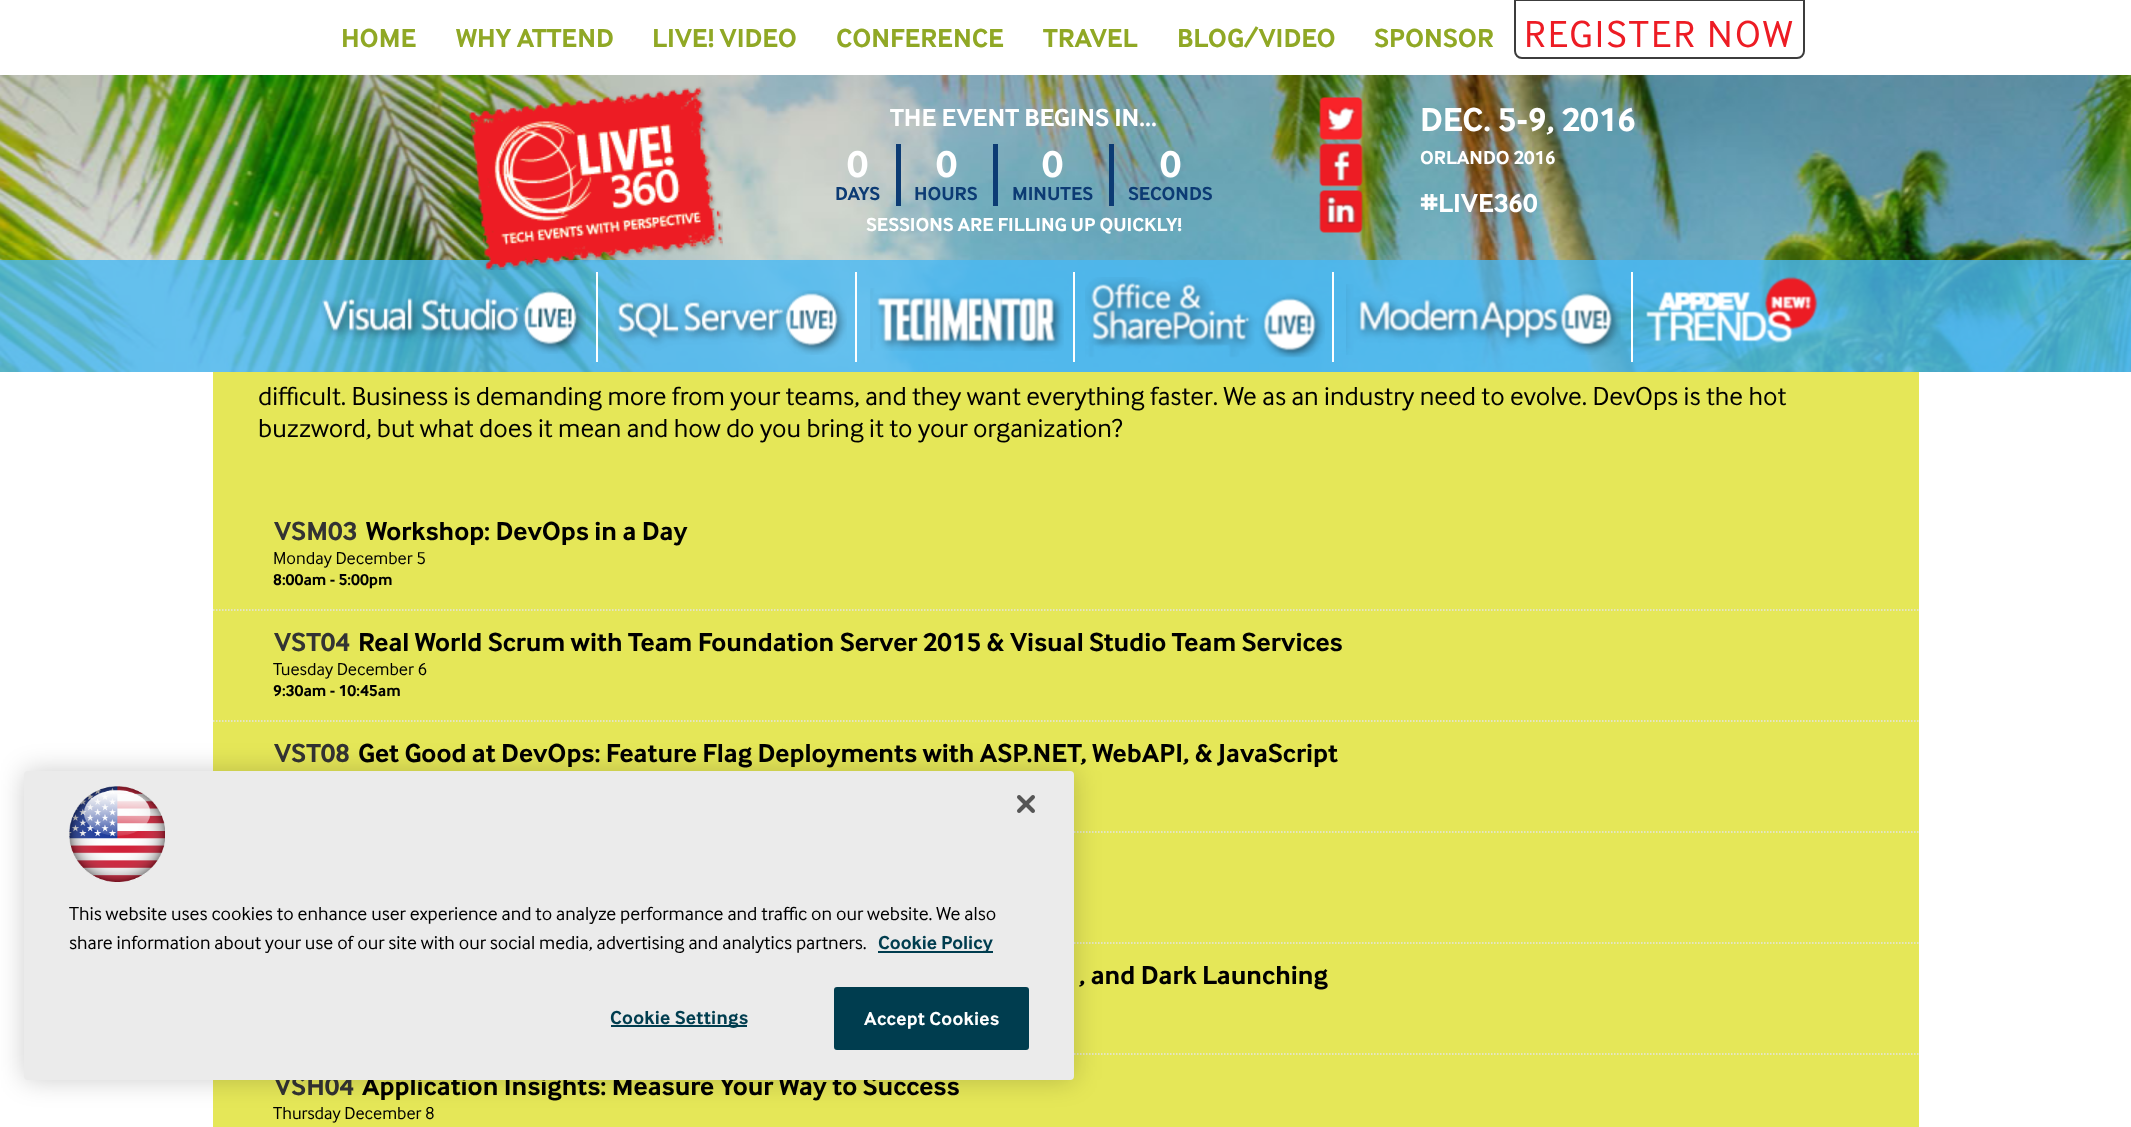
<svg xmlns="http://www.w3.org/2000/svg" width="2131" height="1127">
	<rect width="100%" height="100%" fill="#FFFFFF" />
	<g font-family="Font" font-size="27" font-weight="700" fill="#90A825">
		<text x="341" y="47">HOME</text>
		<text x="456" y="47">WHY ATTEND</text>
		<text x="652" y="47">LIVE! VIDEO</text>
		<text x="836" y="47">CONFERENCE</text>
		<text x="1043" y="47">TRAVEL</text>
		<text x="1177" y="47">BLOG/VIDEO</text>
		<text x="1374" y="47">SPONSOR</text>
	</g>
	<path d="M1515 0H1804V51C1804 55 1801 58 1797 58H1522C1518 58 1515 55 1515 51Z" fill="none" stroke="#3C3C3C" stroke-width="2" />
	<text x="1524" y="47" font-family="Font" font-size="39" letter-spacing="2.25" fill="#ED1C24">REGISTER NOW</text>
	<image x="0" y="75" width="2131" height="297" href="assets/img1.png" />
	<rect x="0" y="260" width="2131" height="112" fill="#49B9F4" fill-opacity="0.8" />
	<image x="469" y="86" width="254" height="184" href="assets/img2.png" />
	<text x="890" y="126" font-family="Font" font-size="25.5" font-weight="700" fill="#FFFFFF">THE EVENT BEGINS IN…</text>
	<rect x="896" y="144" width="5" height="62" fill="#0C3B74" />
	<text x="847" y="177" font-family="Font" font-size="39" font-weight="700" fill="#FFFFFF">0</text>
	<text x="835" y="200" font-family="Font" font-size="19.5" font-weight="700" fill="#0C3B74">DAYS</text>
	<rect x="993" y="144" width="5" height="62" fill="#0C3B74" />
	<text x="936" y="177" font-family="Font" font-size="39" font-weight="700" fill="#FFFFFF">0</text>
	<text x="914" y="200" font-family="Font" font-size="19.5" font-weight="700" fill="#0C3B74">HOURS</text>
	<rect x="1109" y="144" width="5" height="62" fill="#0C3B74" />
	<text x="1042" y="177" font-family="Font" font-size="39" font-weight="700" fill="#FFFFFF">0</text>
	<text x="1012" y="200" font-family="Font" font-size="19.5" font-weight="700" fill="#0C3B74">MINUTES</text>
	<text x="1160" y="177" font-family="Font" font-size="39" font-weight="700" fill="#FFFFFF">0</text>
	<text x="1128" y="200" font-family="Font" font-size="19.5" font-weight="700" fill="#0C3B74">SECONDS</text>
	<text x="866" y="231" font-family="Font" font-size="19.5" font-weight="700" fill="#FFFFFF">SESSIONS ARE FILLING UP QUICKLY!</text>
	<image x="1319" y="97" width="44" height="43" href="assets/img3.png" />
	<image x="1319" y="143" width="44" height="44" href="assets/img4.png" />
	<image x="1319" y="190" width="44" height="43" href="assets/img5.png" />
	<text x="1420" y="131" font-family="Font" font-size="34.5" font-weight="700" fill="#FFFFFF">DEC. 5-9, 2016</text>
	<text x="1420" y="164" font-family="Font" font-size="19.5" font-weight="700" fill="#FFFFFF">ORLANDO 2016</text>
	<text x="1420" y="212" font-family="Font" font-size="27" font-weight="700" fill="#FFFFFF">#LIVE360</text>
	<rect x="596" y="272" width="2" height="90" fill="#FFFFFF" />
	<image x="321" y="288" width="265" height="66" href="assets/img6.png" />
	<rect x="855" y="272" width="2" height="90" fill="#FFFFFF" />
	<image x="615" y="290" width="232" height="65" href="assets/img7.png" />
	<rect x="1073" y="272" width="2" height="90" fill="#FFFFFF" />
	<image x="870" y="288" width="194" height="63" href="assets/img8.png" />
	<rect x="1332" y="272" width="2" height="90" fill="#FFFFFF" />
	<image x="1085" y="277" width="240" height="81" href="assets/img9.png" />
	<rect x="1631" y="272" width="2" height="90" fill="#FFFFFF" />
	<image x="1346" y="284" width="275" height="71" href="assets/img10.png" />
	<image x="1646" y="276" width="172" height="67" href="assets/img11.png" />
	<rect x="213" y="372" width="1706" height="755" fill="#E5E758" />
	<g font-family="Font" font-size="27" fill="#000000">
		<text x="258" y="405">difficult. Business is demanding more from your teams, and they want everything faster. We as an industry need to evolve. DevOps is the hot</text>
		<text x="258" y="437">buzzword, but what does it mean and how do you bring it to your organization?</text>
	</g>
	<path d="M213 610H1918.5" fill="none" stroke="#E4E5E6" stroke-width="1.5" stroke-dasharray="1.5 1.5" />
	<text x="274" y="540" font-family="Font" font-size="27" font-weight="700" fill="#333333">VSM03</text>
	<text x="366" y="540" font-family="Font" font-size="27" font-weight="700" fill="#000000">Workshop: DevOps in a Day</text>
	<text x="273" y="564" font-family="Font" font-size="18" fill="#000000">Monday December 5</text>
	<text x="273" y="585" font-family="Font" font-size="16.5" font-weight="700" fill="#000000">8:00am - 5:00pm</text>
	<path d="M213 721H1918.5" fill="none" stroke="#E4E5E6" stroke-width="1.5" stroke-dasharray="1.5 1.5" />
	<text x="274" y="651" font-family="Font" font-size="27" font-weight="700" fill="#333333">VST04</text>
	<text x="358" y="651" font-family="Font" font-size="27" font-weight="700" fill="#000000">Real World Scrum with Team Foundation Server 2015 &amp; Visual Studio Team Services</text>
	<text x="273" y="675" font-family="Font" font-size="18" fill="#000000">Tuesday December 6</text>
	<text x="273" y="696" font-family="Font" font-size="16.5" font-weight="700" fill="#000000">9:30am - 10:45am</text>
	<path d="M213 832H1918.5" fill="none" stroke="#E4E5E6" stroke-width="1.5" stroke-dasharray="1.5 1.5" />
	<text x="274" y="762" font-family="Font" font-size="27" font-weight="700" fill="#333333">VST08</text>
	<text x="358" y="762" font-family="Font" font-size="27" font-weight="700" fill="#000000">Get Good at DevOps: Feature Flag Deployments with ASP.NET, WebAPI, &amp; JavaScript</text>
	<path d="M213 943H1918.5" fill="none" stroke="#E4E5E6" stroke-width="1.5" stroke-dasharray="1.5 1.5" />
	<path d="M213 1054H1918.5" fill="none" stroke="#E4E5E6" stroke-width="1.5" stroke-dasharray="1.5 1.5" />
	<text x="1079" y="984" font-family="Font" font-size="27" font-weight="700" fill="#000000">, and Dark Launching</text>
	<text x="274" y="1095" font-family="Font" font-size="27" font-weight="700" fill="#333333">VSH04</text>
	<text x="362" y="1095" font-family="Font" font-size="27" font-weight="700" fill="#000000">Application Insights: Measure Your Way to Success</text>
	<text x="273" y="1119" font-family="Font" font-size="18" fill="#000000">Thursday December 8</text>
	<rect x="24" y="771" width="1050" height="309" rx="4" fill="#000000" fill-opacity="0.2" filter="blur(13.5px)" />
	<rect x="24" y="771" width="1050" height="309" rx="4" fill="#EBEBEB" />
	<image x="1017" y="795" width="18" height="18" href="assets/img12.png" />
	<image x="69" y="786" width="96" height="96" href="assets/img13.png" />
	<g font-family="Font" font-size="19.5" fill="#000000">
		<text x="69" y="920">This website uses cookies to enhance user experience and to analyze performance and traffic on our website. We also</text>
		<text x="69" y="949">share information about your use of our site with our social media, advertising and analytics partners.</text>
	</g>
	<rect x="878" y="951" width="115" height="2" fill="#003D4F" />
	<text x="878" y="949" font-family="Font" font-size="19.5" font-weight="700" fill="#003D4F">Cookie Policy</text>
	<rect x="611" y="1025" width="136" height="2" fill="#003D4F" />
	<text x="610" y="1024" font-family="Font" font-size="19.5" font-weight="700" letter-spacing="0.25" fill="#003D4F">Cookie Settings</text>
	<rect x="835" y="988" width="193" height="61" rx="2" fill="#003D4F" stroke="#003D4F" stroke-width="2" />
	<text x="864" y="1025" font-family="Font" font-size="19.5" font-weight="700" letter-spacing="0.25" fill="#FFFFFF">Accept Cookies</text>
</svg>
